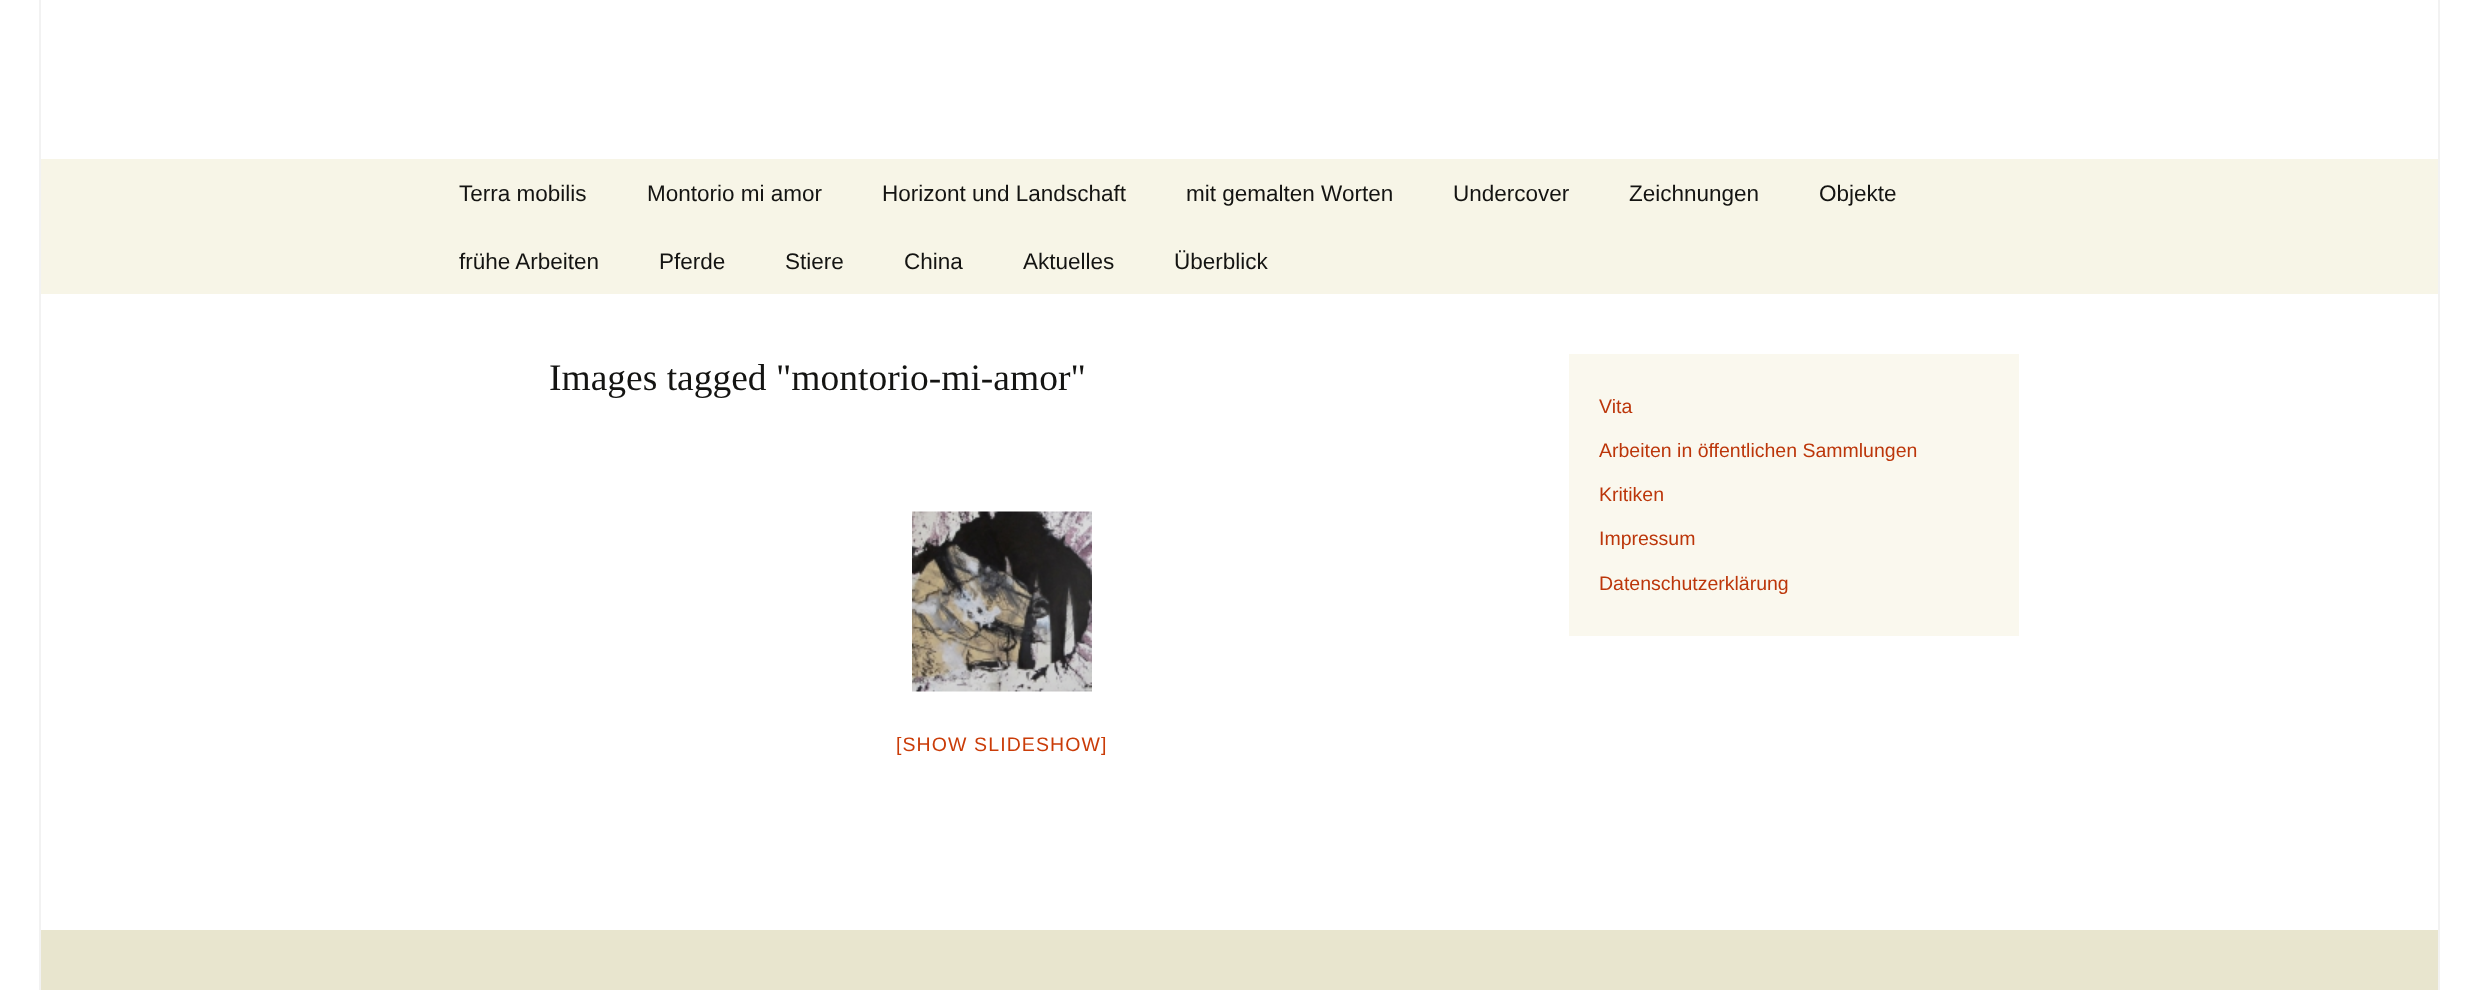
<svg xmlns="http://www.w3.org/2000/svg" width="2477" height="990">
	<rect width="100%" height="100%" fill="#FFFFFF" />
	<rect x="2438" y="0" width="2" height="990" fill="#F2F2F2" />
	<rect x="39" y="0" width="2" height="990" fill="#F2F2F2" />
	<rect x="41" y="159" width="2397" height="135" fill="#F7F5E7" />
	<g font-family="Liberation Sans" font-size="22.5" fill="#141412">
		<text x="459" y="201">Terra mobilis</text>
		<text x="647" y="201">Montorio mi amor</text>
		<text x="882" y="201">Horizont und Landschaft</text>
		<text x="1186" y="201">mit gemalten Worten</text>
		<text x="1453" y="201">Undercover</text>
		<text x="1629" y="201">Zeichnungen</text>
		<text x="1819" y="201">Objekte</text>
		<text x="459" y="269">frühe Arbeiten</text>
		<text x="659" y="269">Pferde</text>
		<text x="785" y="269">Stiere</text>
		<text x="904" y="269">China</text>
		<text x="1023" y="269">Aktuelles</text>
		<text x="1174" y="269">Überblick</text>
	</g>
	<text x="549" y="390" font-family="Liberation Serif" font-size="37.5" fill="#141412">Images tagged "montorio-mi-amor"</text>
	<image x="912" y="511" width="180" height="181" href="assets/img1.png" />
	<text x="896" y="751" font-family="Liberation Sans" font-size="19.5" letter-spacing="1.1" fill="#CA3C08">[SHOW SLIDESHOW]</text>
	<rect x="1569" y="354" width="450" height="282" fill="#FAF8EE" />
	<g font-family="Liberation Sans" font-size="19.5" fill="#BC360A">
		<text x="1599" y="413">Vita</text>
		<text x="1599" y="457">Arbeiten in öffentlichen Sammlungen</text>
		<text x="1599" y="501">Kritiken</text>
		<text x="1599" y="545">Impressum</text>
		<text x="1599" y="590">Datenschutzerklärung</text>
	</g>
	<rect x="41" y="930" width="2397" height="60" fill="#E8E5CE" />
</svg>
